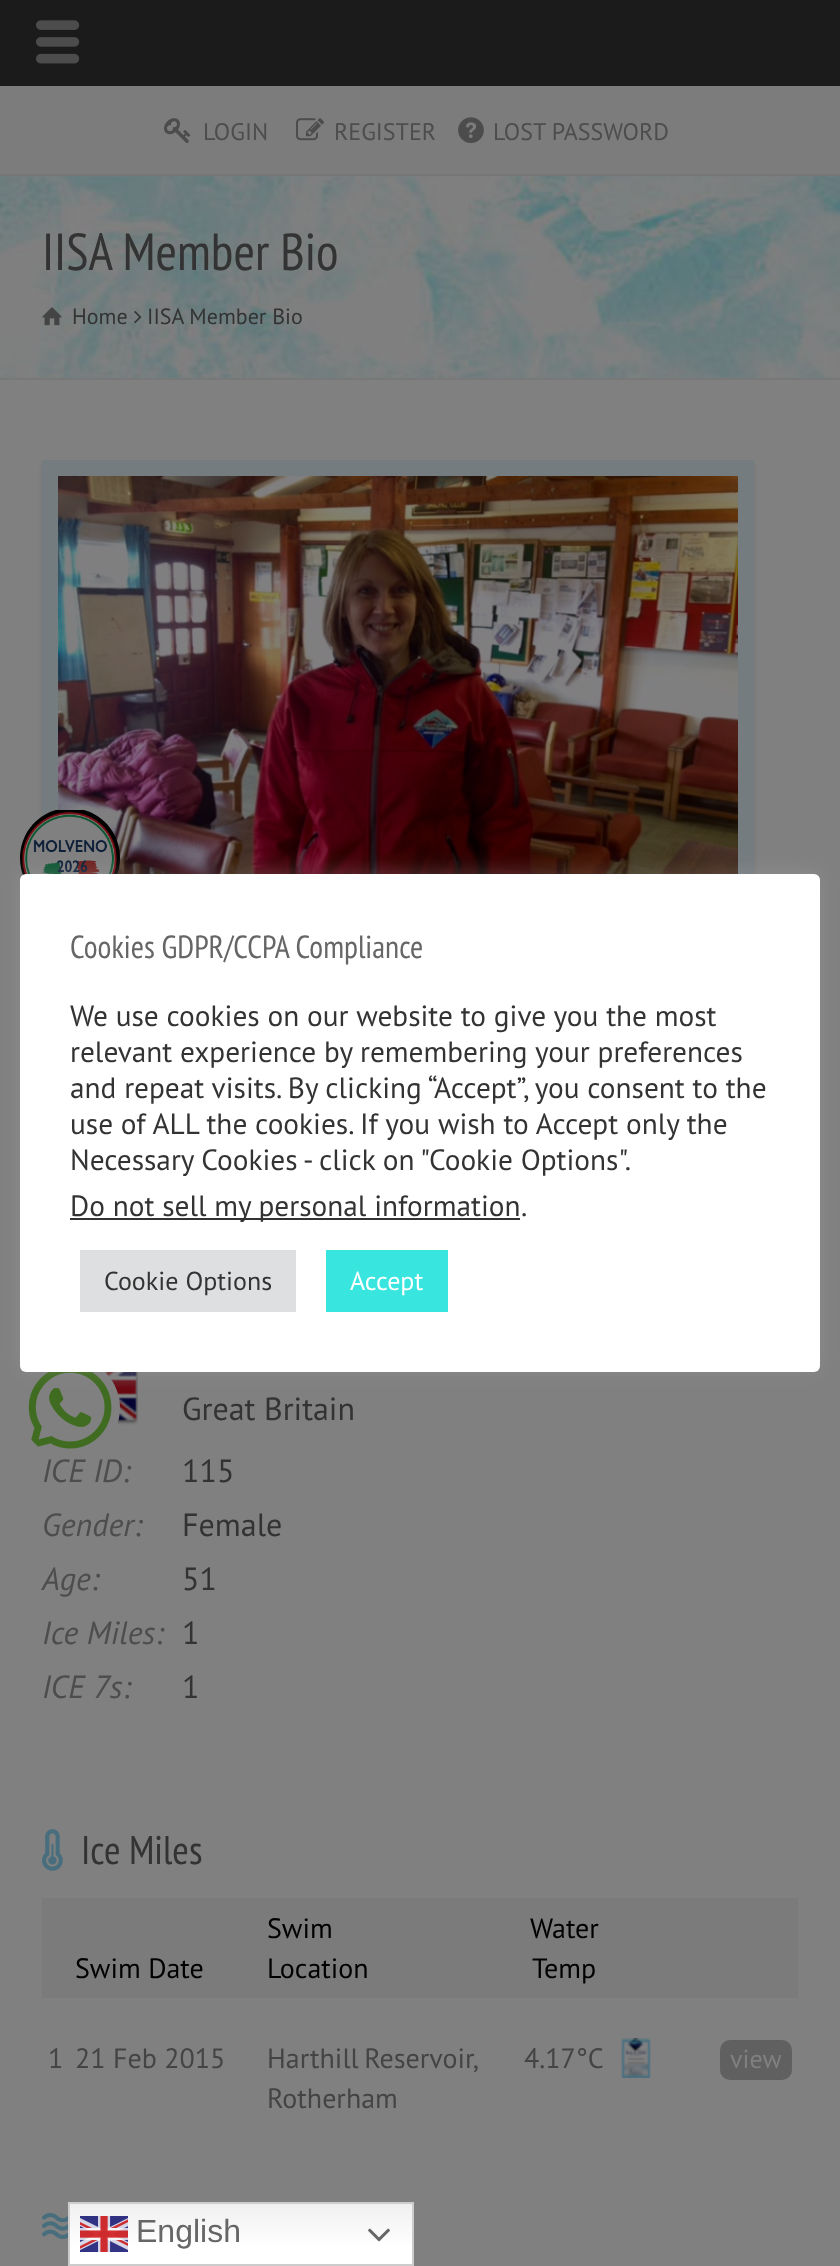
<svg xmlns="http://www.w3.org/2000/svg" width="840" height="2266">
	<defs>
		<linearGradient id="g1" gradientUnits="userSpaceOnUse" x1="241" y1="2202" x2="241" y2="2266"><stop offset="0" stop-color="#EFEFEF" /><stop offset="0.7" stop-color="#FFFFFF" /></linearGradient>
	</defs>
	<rect width="100%" height="100%" fill="#808080" />
	<rect x="0" y="0" width="840" height="86" fill="#1B1B1B" />
	<image x="36" y="20" width="44" height="44" href="assets/img1.png" />
	<rect x="0" y="86" width="840" height="88" fill="#7C7C7C" />
	<rect x="0" y="174" width="840" height="2" fill="#777777" />
	<image x="164" y="118" width="27" height="25" href="assets/img2.png" />
	<text x="203" y="140" font-family="PT Sans" font-size="24" fill="#4D4D4D">LOGIN</text>
	<image x="296" y="118" width="28" height="23" href="assets/img3.png" />
	<text x="334" y="140" font-family="PT Sans" font-size="24" fill="#4D4D4D">REGISTER</text>
	<image x="458" y="117" width="26" height="26" href="assets/img4.png" />
	<text x="493" y="140" font-family="PT Sans" font-size="24" fill="#4D4D4D">LOST PASSWORD</text>
	<image x="0" y="176" width="840" height="202" href="assets/img5.png" />
	<rect x="0" y="378" width="840" height="2" fill="#787878" />
	<text x="42" y="270" font-family="PT Sans Narrow" font-size="52" fill="#333333">IISA Member Bio</text>
	<image x="42" y="307" width="20" height="19" href="assets/img6.png" />
	<text x="72" y="324" font-family="PT Sans" font-size="22" fill="#333333">Home</text>
	<image x="134" y="311" width="8" height="13" href="assets/img7.png" />
	<text x="147" y="324" font-family="PT Sans" font-size="22" fill="#333333">IISA Member Bio</text>
	<rect x="42" y="464" width="712" height="542" fill="#000000" fill-opacity="0.1" filter="blur(2px)" />
	<rect x="50" y="468" width="696" height="526" fill="none" stroke="#757C7F" stroke-width="16" />
	<image x="58" y="476" width="680" height="398" href="assets/img8.png" />
	<image x="104" y="1372" width="34" height="53" href="assets/img9.png" />
	<text x="182" y="1420" font-family="PT Sans" font-size="32" fill="#333333">Great Britain</text>
	<text x="42" y="1482" font-family="PT Sans" font-size="32" font-style="italic" fill="#4D4D4D">ICE ID:</text>
	<text x="182" y="1482" font-family="PT Sans" font-size="32" fill="#333333">115</text>
	<text x="42" y="1536" font-family="PT Sans" font-size="32" font-style="italic" fill="#4D4D4D">Gender:</text>
	<text x="182" y="1536" font-family="PT Sans" font-size="32" fill="#333333">Female</text>
	<text x="42" y="1590" font-family="PT Sans" font-size="32" font-style="italic" fill="#4D4D4D">Age:</text>
	<text x="182" y="1590" font-family="PT Sans" font-size="32" fill="#333333">51</text>
	<text x="42" y="1644" font-family="PT Sans" font-size="32" font-style="italic" fill="#4D4D4D">Ice Miles:</text>
	<text x="182" y="1644" font-family="PT Sans" font-size="32" fill="#333333">1</text>
	<text x="42" y="1698" font-family="PT Sans" font-size="32" font-style="italic" fill="#4D4D4D">ICE 7s:</text>
	<text x="182" y="1698" font-family="PT Sans" font-size="32" fill="#333333">1</text>
	<image x="42" y="1829" width="21" height="42" href="assets/img10.png" />
	<text x="81" y="1864" font-family="PT Sans Narrow" font-size="40" fill="#333333">Ice Miles</text>
	<rect x="42" y="1898" width="756" height="100" fill="#7B7B7B" />
	<g font-family="PT Sans" font-size="28" fill="#000000">
		<text x="75" y="1978">Swim Date</text>
		<text x="267" y="1938">Swim</text>
		<text x="267" y="1978">Location</text>
		<text x="530" y="1938">Water</text>
		<text x="532" y="1978">Temp</text>
	</g>
	<g font-family="PT Sans" font-size="28" fill="#444444">
		<text x="48" y="2068">1</text>
		<text x="75" y="2068">21 Feb 2015</text>
		<text x="267" y="2068" word-spacing="-2">Harthill Reservoir,</text>
		<text x="267" y="2108">Rotherham</text>
		<text x="524" y="2068">4.17°C</text>
	</g>
	<image x="621" y="2038" width="30" height="40" href="assets/img11.png" />
	<rect x="720" y="2040" width="72" height="40" rx="10" fill="#606060" />
	<text x="730" y="2068" font-family="PT Sans" font-size="26" fill="#808080">view</text>
	<image x="42" y="2213" width="26" height="26" href="assets/img12.png" />
	<path d="M84 810C105 816 120 835 120 858C120 886 98 908 70 908C42 908 20 886 20 858C20 835 35 816 56 810Z" fill="#000000" />
	<image x="22" y="812" width="95" height="63" href="assets/img13.png" />
	<path d="M84 1360C105 1366 120 1385 120 1408C120 1436 98 1458 70 1458C42 1458 20 1436 20 1408C20 1385 35 1366 56 1360Z" fill="#808080" />
	<image x="28" y="1372" width="84" height="77" href="assets/img14.png" />
	<rect x="20" y="872" width="800" height="498" rx="6" fill="#ACABAB" fill-opacity="0.3" filter="blur(10px)" />
	<rect x="20" y="874" width="800" height="498" rx="6" fill="#FFFFFF" />
	<text x="70" y="958" font-family="PT Sans Narrow" font-size="32" fill="#666666">Cookies GDPR/CCPA Compliance</text>
	<g font-family="PT Sans" font-size="29.3" fill="#333333">
		<text x="70" y="1026">We use cookies on our website to give you the most</text>
		<text x="70" y="1062">relevant experience by remembering your preferences</text>
		<text x="70" y="1098">and repeat visits. By clicking “Accept”, you consent to the</text>
		<text x="70" y="1134">use of ALL the cookies. If you wish to Accept only the</text>
		<text x="70" y="1170">Necessary Cookies - click on "Cookie Options".</text>
	</g>
	<rect x="70" y="1218" width="450" height="2" fill="#333333" />
	<g font-family="PT Sans" font-size="29.3" fill="#333333">
		<text x="70" y="1216">Do not sell my personal information</text>
		<text x="521" y="1216">.</text>
	</g>
	<rect x="80" y="1250" width="216" height="62" fill="#DEDFE0" />
	<text x="104" y="1290" font-family="PT Sans" font-size="26" fill="#333333">Cookie Options</text>
	<rect x="326" y="1250" width="122" height="62" fill="#39E5DF" />
	<text x="350" y="1290" font-family="PT Sans" font-size="26" fill="#FFFFFF">Accept</text>
	<rect x="70" y="2204" width="342" height="60" fill="url(#g1)" />
	<rect x="69" y="2203" width="344" height="62" fill="none" stroke="#CCCCCC" stroke-width="2" />
	<image x="80" y="2216" width="48" height="36" href="assets/img15.png" />
	<text x="136" y="2242" font-family="Liberation Sans" font-size="32" fill="#666666">English</text>
	<image x="368" y="2228" width="22" height="14" href="assets/img16.png" />
</svg>
